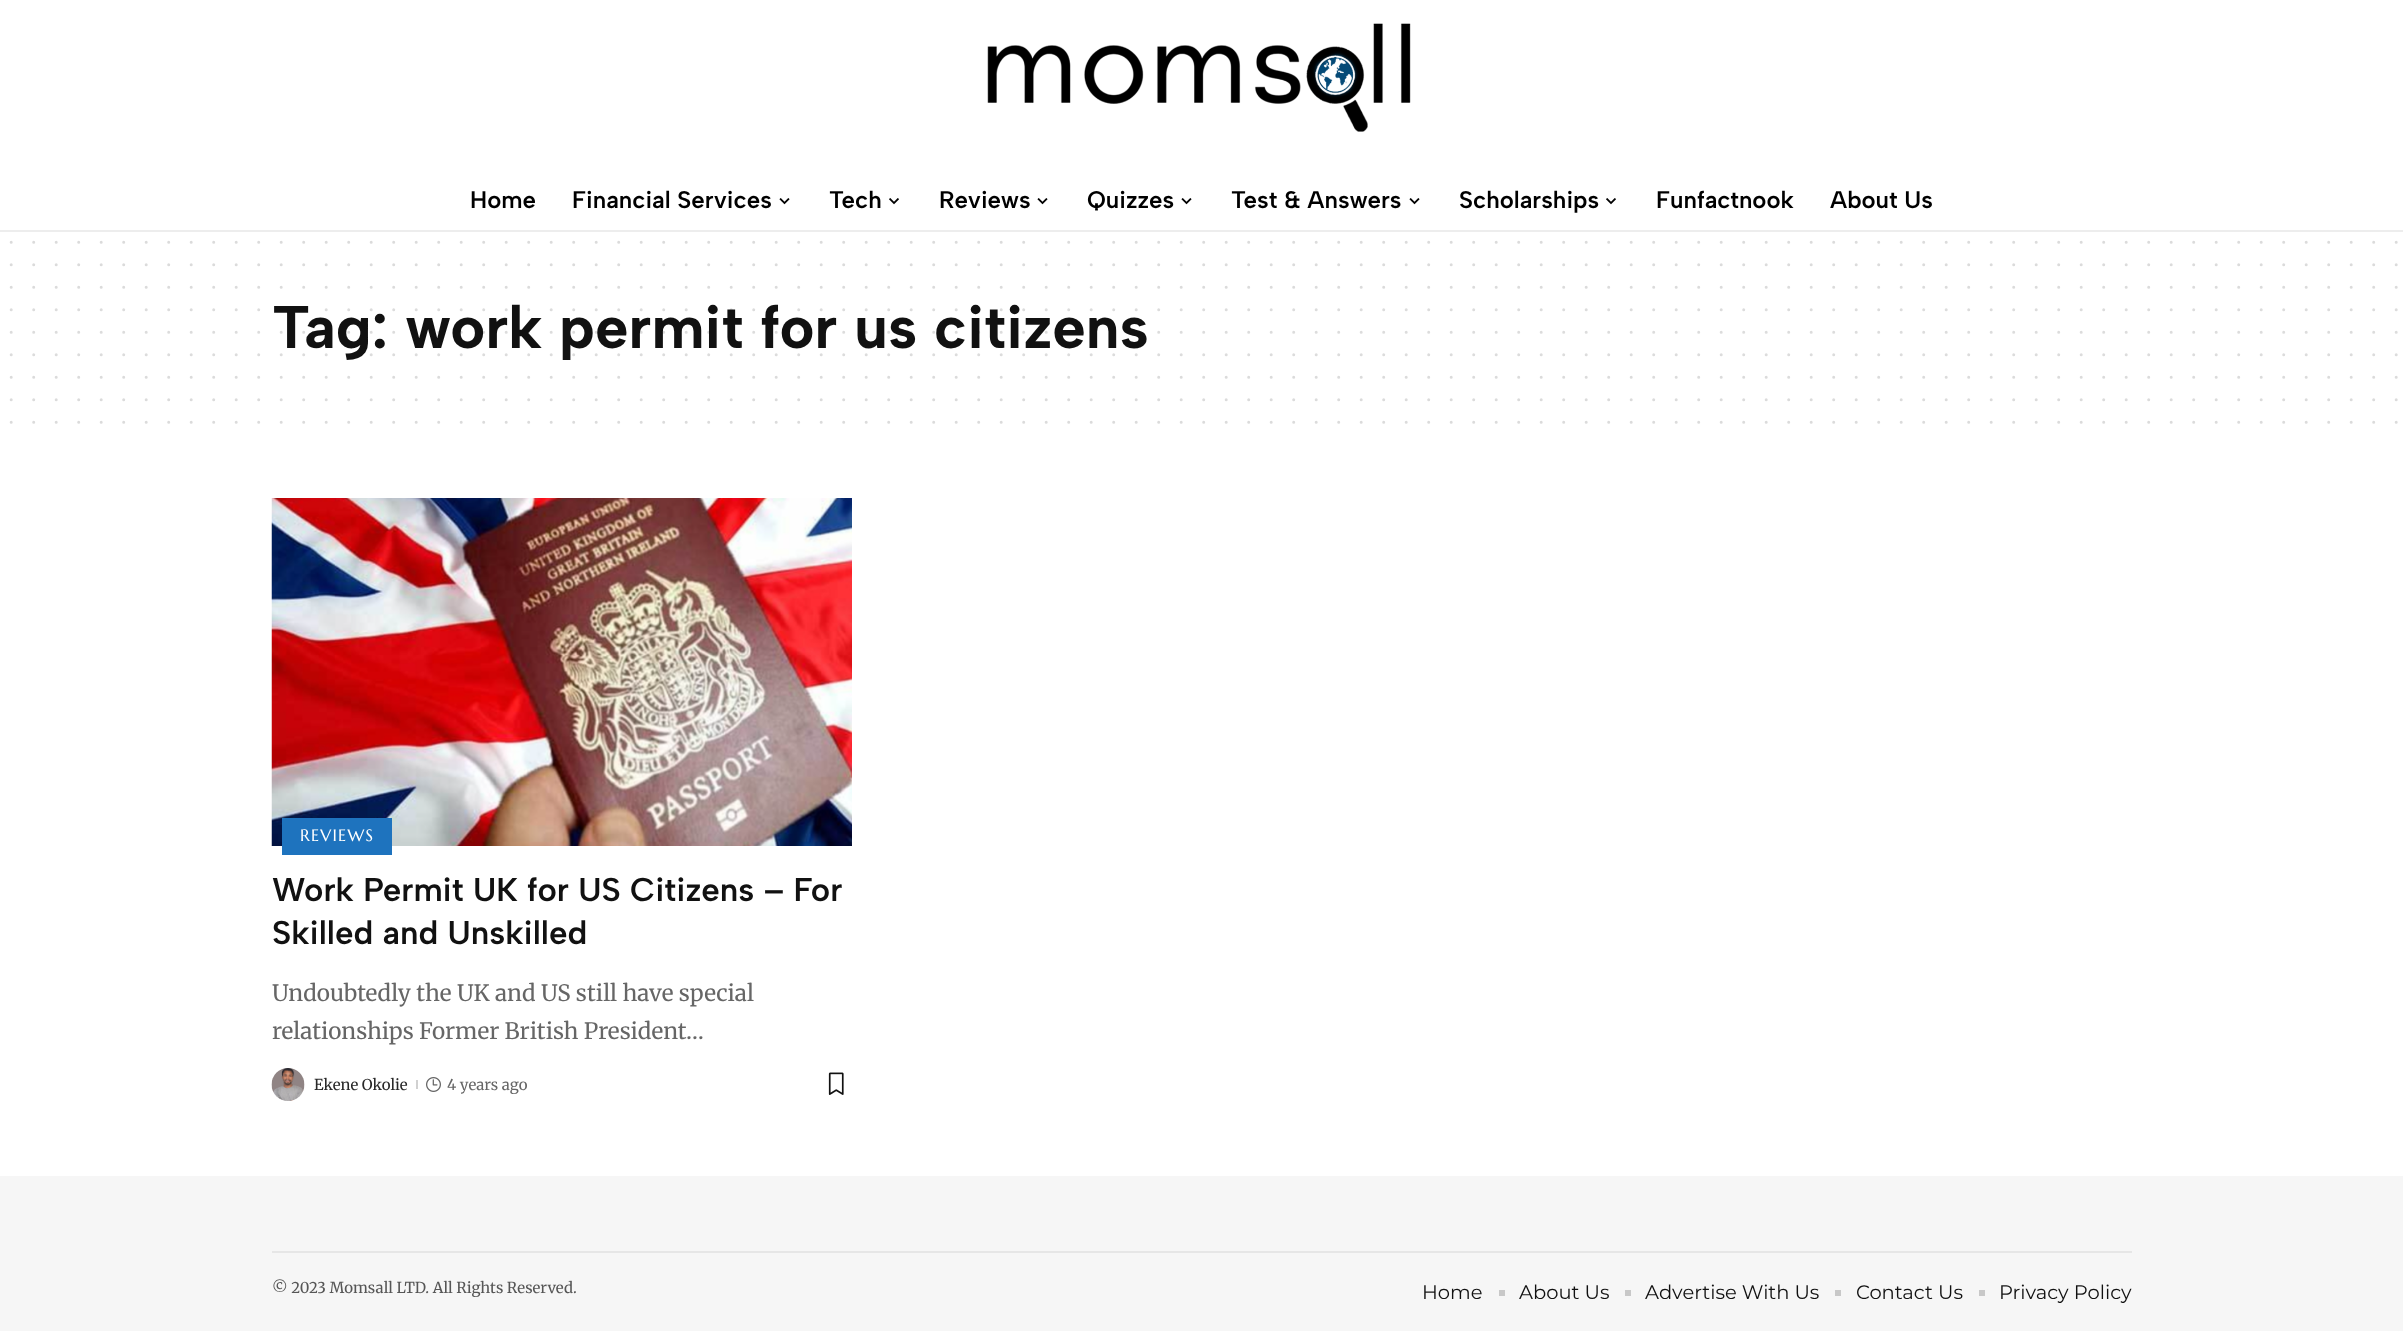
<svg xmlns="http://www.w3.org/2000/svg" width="2403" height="1331">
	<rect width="100%" height="100%" fill="#FFFFFF" />
	<image x="987" y="23" width="424" height="109" href="assets/img1.png" />
	<g font-family="Albert Sans" font-size="24" font-weight="600" fill="#000000">
		<text x="470" y="208">Home</text>
		<text x="572" y="208">Financial Services</text>
	</g>
	<image x="779" y="198" width="11" height="7" href="assets/img2.png" />
	<text x="829" y="208" font-family="Albert Sans" font-size="24" font-weight="600" fill="#000000">Tech</text>
	<image x="889" y="198" width="10" height="7" href="assets/img3.png" />
	<text x="939" y="208" font-family="Albert Sans" font-size="24" font-weight="600" fill="#000000">Reviews</text>
	<image x="1037" y="198" width="11" height="7" href="assets/img2.png" />
	<text x="1087" y="208" font-family="Albert Sans" font-size="24" font-weight="600" fill="#000000">Quizzes</text>
	<image x="1181" y="198" width="11" height="7" href="assets/img2.png" />
	<text x="1231" y="208" font-family="Albert Sans" font-size="24" font-weight="600" fill="#000000">Test &amp; Answers</text>
	<image x="1409" y="198" width="11" height="7" href="assets/img2.png" />
	<text x="1459" y="208" font-family="Albert Sans" font-size="24" font-weight="600" fill="#000000">Scholarships</text>
	<image x="1606" y="198" width="10" height="7" href="assets/img3.png" />
	<g font-family="Albert Sans" font-size="24" font-weight="600" fill="#000000">
		<text x="1656" y="208">Funfactnook</text>
		<text x="1830" y="208">About Us</text>
	</g>
	<rect x="0" y="230" width="2403" height="2" fill="#EDEDED" />
	<path d="M11.2 242.2H2396.6" fill="none" stroke="#DBDBDB" stroke-width="3" stroke-linecap="round" stroke-dasharray="0 22.5" />
	<path d="M11.2 264.8H2396.6" fill="none" stroke="#DBDBDB" stroke-width="3" stroke-linecap="round" stroke-dasharray="0 22.5" />
	<path d="M11.2 287.2H2396.6" fill="none" stroke="#DBDBDB" stroke-width="3" stroke-linecap="round" stroke-dasharray="0 22.5" />
	<text x="272" y="348" font-family="Albert Sans" font-size="60" font-weight="700" fill="#111111">Tag: work permit for us citizens</text>
	<path d="M11.2 309.8H2396.6" fill="none" stroke="#111111" stroke-opacity="0.15" stroke-width="3" stroke-linecap="round" stroke-dasharray="0 22.5" />
	<path d="M11.2 332.2H2396.6" fill="none" stroke="#111111" stroke-opacity="0.15" stroke-width="3" stroke-linecap="round" stroke-dasharray="0 22.5" />
	<path d="M11.2 354.8H2396.6" fill="none" stroke="#111111" stroke-opacity="0.15" stroke-width="3" stroke-linecap="round" stroke-dasharray="0 22.5" />
	<path d="M11.2 377.2H2396.6" fill="none" stroke="#DBDBDB" stroke-width="3" stroke-linecap="round" stroke-dasharray="0 22.5" />
	<path d="M11.2 399.8H2396.6" fill="none" stroke="#DBDBDB" stroke-width="3" stroke-linecap="round" stroke-dasharray="0 22.5" />
	<path d="M11.2 422.2H2396.6" fill="none" stroke="#DBDBDB" stroke-width="3" stroke-linecap="round" stroke-dasharray="0 22.5" />
	<image x="271" y="498" width="581" height="348" href="assets/img4.png" />
	<rect x="282" y="818" width="110" height="37" fill="#1E73BE" />
	<text x="300" y="841" font-family="Marcellus" font-size="16.5" letter-spacing="1.25" fill="#FFFFFF">REVIEWS</text>
	<g font-family="Albert Sans" font-size="33" font-weight="600" fill="#111111">
		<text x="272" y="901">Work Permit UK for US Citizens – For</text>
		<text x="272" y="944">Skilled and Unskilled</text>
	</g>
	<g font-family="Merriweather" font-size="22.5" font-weight="300" fill="#666666">
		<text x="272" y="1001">Undoubtedly the UK and US still have special</text>
		<text x="272" y="1039">relationships Former British President</text>
		<text x="686" y="1039">…</text>
	</g>
	<image x="271" y="1068" width="34" height="33" href="assets/img5.png" />
	<text x="314" y="1090" font-family="Merriweather" font-size="15" font-weight="300" fill="#282828">Ekene Okolie</text>
	<rect x="416" y="1080" width="2" height="9" fill="#D1D1D1" />
	<image x="426" y="1077" width="15" height="15" href="assets/img6.png" />
	<text x="447" y="1090" font-family="Merriweather" font-size="15" font-weight="300" fill="#666666">4 years ago</text>
	<image x="828" y="1072" width="16" height="23" href="assets/img7.png" />
	<rect x="0" y="1176" width="2403" height="155" fill="#F6F6F6" />
	<rect x="272" y="1251" width="1860" height="2" fill="#E6E6E6" />
	<text x="272" y="1293" font-family="Merriweather" font-size="15" font-weight="300" fill="#565656">© 2023 Momsall LTD. All Rights Reserved.</text>
	<text x="1422" y="1299" font-family="Montserrat" font-size="19.5" fill="#111111">Home</text>
	<rect x="1499" y="1290" width="6" height="6" fill="#C8C8C8" />
	<text x="1519" y="1299" font-family="Montserrat" font-size="19.5" fill="#111111">About Us</text>
	<rect x="1625" y="1290" width="6" height="6" fill="#C8C8C8" />
	<text x="1645" y="1299" font-family="Montserrat" font-size="19.5" fill="#111111">Advertise With Us</text>
	<rect x="1835" y="1290" width="6" height="6" fill="#C8C8C8" />
	<text x="1856" y="1299" font-family="Montserrat" font-size="19.5" fill="#111111">Contact Us</text>
	<rect x="1979" y="1290" width="6" height="6" fill="#C8C8C8" />
	<text x="1999" y="1299" font-family="Montserrat" font-size="19.5" fill="#111111">Privacy Policy</text>
</svg>
